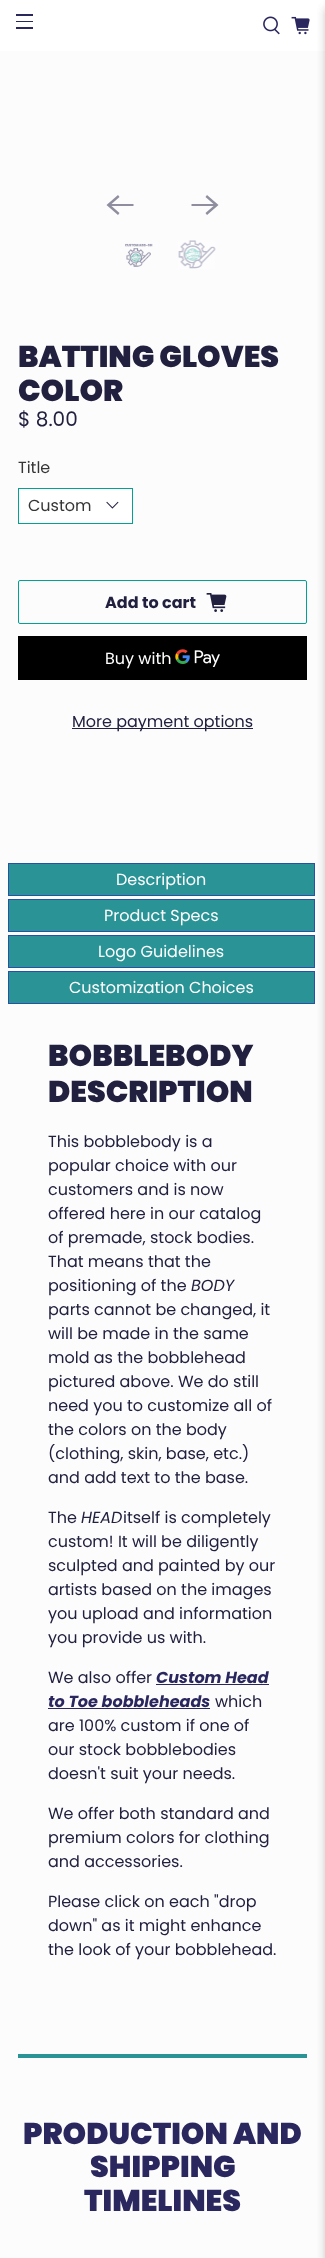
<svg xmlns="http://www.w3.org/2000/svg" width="325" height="2258">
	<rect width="100%" height="100%" fill="#FCFCFC" />
	<rect x="0" y="0" width="325" height="51" fill="#FFFFFF" />
	<rect x="16" y="14" width="17" height="2" fill="#2A275F" />
	<rect x="16" y="21" width="17" height="1" fill="#2A275F" />
	<rect x="16" y="27" width="17" height="2" fill="#2A275F" />
	<image x="263" y="16" width="17" height="19" href="assets/img1.png" />
	<image x="291" y="16" width="19" height="19" href="assets/img2.png" />
	<rect x="8.5" y="863.5" width="306" height="32" fill="#299396" stroke="#2751A7" />
	<rect x="8.5" y="899.5" width="306" height="32" fill="#299396" stroke="#2751A7" />
	<rect x="8.5" y="935.5" width="306" height="32" fill="#299396" stroke="#2751A7" />
	<rect x="8.5" y="971.5" width="306" height="32" fill="#299396" stroke="#2751A7" />
	<rect x="325" y="8" width="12" height="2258" fill="#0A0A0A" fill-opacity="0.1" filter="blur(4px)" />
	<path d="M133.5 204H111.5L119.5 197L118 195L106.5 205L118 215L119.5 213L111.5 206H133.5Z" fill="#8F8E9E" />
	<path d="M191.5 206H213.5L205.5 213L207 215L218.5 205L207 195L205.5 197L213.5 204H191.5Z" fill="#8F8E9E" />
	<image x="125" y="243" width="28" height="24" href="assets/img3.png" />
	<image x="178" y="240" width="38" height="29" href="assets/img4.png" />
	<g font-family="Poppins" font-size="30" font-weight="900" fill="#21203F">
		<text x="18" y="367">BATTING GLOVES</text>
		<text x="18" y="401">COLOR</text>
	</g>
	<text x="18" y="426" font-family="Poppins" font-size="20" fill="#21203F">$ 8.00</text>
	<text x="18" y="473" font-family="Poppins" font-size="16" fill="#363636">Title</text>
	<rect x="18.5" y="488.5" width="114" height="35" fill="#FFFFFF" stroke="#02A193" />
	<text x="28" y="511" font-family="Poppins" font-size="16" fill="#363636">Custom</text>
	<image x="106" y="501" width="13" height="8" href="assets/img5.png" />
	<rect x="18.5" y="580.5" width="288" height="43" rx="1.5" fill="none" stroke="#02A193" />
	<text x="105" y="608" font-family="Poppins" font-size="16" font-weight="700" fill="#21203F">Add to cart</text>
	<image x="206" y="593" width="21" height="19" href="assets/img6.png" />
	<rect x="18" y="636" width="289" height="44" fill="#000000" />
	<text x="105" y="664" font-family="Poppins" font-size="16" fill="#FFFFFF">Buy with</text>
	<image x="175" y="649" width="45" height="18" href="assets/img7.png" />
	<rect x="72" y="728" width="181" height="1" fill="#21203F" />
	<text x="72" y="727" font-family="Poppins" font-size="16" fill="#21203F">More payment options</text>
	<g font-family="Poppins" font-size="16" fill="#FFFFFF">
		<text x="116" y="885">Description</text>
		<text x="104" y="921">Product Specs</text>
		<text x="98" y="957">Logo Guidelines</text>
		<text x="69" y="993">Customization Choices</text>
	</g>
	<g font-family="Poppins" font-size="30" font-weight="900" fill="#21203F">
		<text x="48" y="1066">BOBBLEBODY</text>
		<text x="48" y="1102">DESCRIPTION</text>
	</g>
	<g font-family="Poppins" font-size="16" fill="#21203F">
		<text x="48" y="1147">This bobblebody is a</text>
		<text x="48" y="1171">popular choice with our</text>
		<text x="48" y="1195">customers and is now</text>
		<text x="48" y="1219">offered here in our catalog</text>
		<text x="48" y="1243">of premade, stock bodies.</text>
		<text x="48" y="1267">That means that the</text>
		<text x="48" y="1291">positioning of the</text>
	</g>
	<text x="191" y="1291" font-family="Poppins" font-size="16" font-style="italic" fill="#21203F">BODY</text>
	<g font-family="Poppins" font-size="16" fill="#21203F">
		<text x="48" y="1315">parts cannot be changed, it</text>
		<text x="48" y="1339">will be made in the same</text>
		<text x="48" y="1363">mold as the bobblehead</text>
		<text x="48" y="1387">pictured above. We do still</text>
		<text x="48" y="1411">need you to customize all of</text>
		<text x="48" y="1435">the colors on the body</text>
		<text x="48" y="1459">(clothing, skin, base, etc.)</text>
		<text x="48" y="1483">and add text to the base.</text>
		<text x="48" y="1523">The</text>
	</g>
	<text x="81" y="1523" font-family="Poppins" font-size="16" font-style="italic" fill="#21203F">HEAD</text>
	<g font-family="Poppins" font-size="16" fill="#21203F">
		<text x="123" y="1523">itself is completely</text>
		<text x="48" y="1547">custom! It will be diligently</text>
		<text x="48" y="1571">sculpted and painted by our</text>
		<text x="48" y="1595">artists based on the images</text>
		<text x="48" y="1619">you upload and information</text>
		<text x="48" y="1643">you provide us with.</text>
		<text x="48" y="1683">We also offer</text>
	</g>
	<text x="156" y="1683" font-family="Poppins" font-size="16" font-weight="700" font-style="italic" fill="#2A275F">Custom Head</text>
	<rect x="156" y="1684" width="113" height="1" fill="#2A275F" />
	<text x="48" y="1707" font-family="Poppins" font-size="16" font-weight="700" font-style="italic" fill="#2A275F">to Toe bobbleheads</text>
	<rect x="48" y="1708" width="162" height="1" fill="#2A275F" />
	<g font-family="Poppins" font-size="16" fill="#21203F">
		<text x="215" y="1707">which</text>
		<text x="48" y="1731">are 100% custom if one of</text>
		<text x="48" y="1755">our stock bobblebodies</text>
		<text x="48" y="1779">doesn't suit your needs.</text>
		<text x="48" y="1819">We offer both standard and</text>
		<text x="48" y="1843">premium colors for clothing</text>
		<text x="48" y="1867">and accessories.</text>
		<text x="48" y="1907">Please click on each "drop</text>
		<text x="48" y="1931">down" as it might enhance</text>
		<text x="48" y="1955">the look of your bobblehead.</text>
	</g>
	<rect x="18" y="2054" width="289" height="4" fill="#299396" />
	<g font-family="Poppins" font-size="30" font-weight="900" fill="#2A275F">
		<text x="23" y="2144">PRODUCTION AND</text>
		<text x="90" y="2177">SHIPPING</text>
		<text x="84" y="2211">TIMELINES</text>
	</g>
	<rect x="325" y="8" width="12" height="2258" fill="#0A0A0A" fill-opacity="0.1" filter="blur(4px)" />
</svg>
